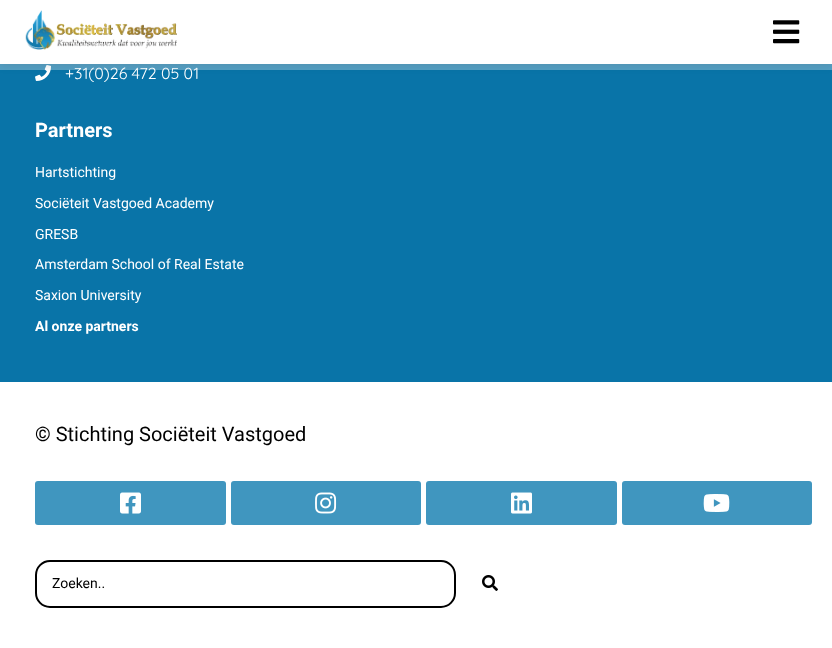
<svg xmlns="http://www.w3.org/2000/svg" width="832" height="648">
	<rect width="100%" height="100%" fill="#FFFFFF" />
	<rect x="0" y="64" width="832" height="318" fill="#0974A8" />
	<image x="35" y="65" width="16" height="16" href="assets/img3.png" />
	<rect x="0" y="0" width="832" height="64" fill="#000000" fill-opacity="0.2" filter="blur(5px)" />
	<rect x="0" y="0" width="832" height="64" fill="#FFFFFF" />
	<image x="25" y="10" width="152" height="40" href="assets/img1.png" />
	<image x="773" y="20" width="27" height="24" href="assets/img2.png" />
	<text x="65" y="79" font-family="Quicksand" font-size="16" fill="#FFFFFF">+31(0)26 472 05 01</text>
	<rect x="0" y="64" width="832" height="6" fill="#FFFFFF" fill-opacity="0.3" />
	<text x="35" y="137" font-family="Roboto" font-size="20" font-weight="700" fill="#FFFFFF">Partners</text>
	<g font-family="Roboto" font-size="14" fill="#FFFFFF">
		<text x="35" y="177">Hartstichting</text>
		<text x="35" y="208">Sociëteit Vastgoed Academy</text>
		<text x="35" y="239">GRESB</text>
		<text x="35" y="269">Amsterdam School of Real Estate</text>
		<text x="35" y="300">Saxion University</text>
	</g>
	<text x="35" y="331" font-family="Roboto" font-size="14" font-weight="700" fill="#FFFFFF">Al onze partners</text>
	<text x="35" y="441" font-family="Roboto" font-size="20" fill="#000000">© Stichting Sociëteit Vastgoed</text>
	<rect x="35" y="481" width="191" height="44" rx="3" fill="#4096BF" />
	<image x="120" y="492" width="21" height="22" href="assets/img4.png" />
	<rect x="231" y="481" width="190" height="44" rx="3" fill="#4096BF" />
	<image x="315" y="492" width="22" height="22" href="assets/img5.png" />
	<rect x="426" y="481" width="191" height="44" rx="3" fill="#4096BF" />
	<image x="511" y="492" width="21" height="22" href="assets/img6.png" />
	<rect x="622" y="481" width="190" height="44" rx="3" fill="#4096BF" />
	<image x="703" y="494" width="27" height="18" href="assets/img7.png" />
	<rect x="36" y="561" width="419" height="46" rx="14" fill="none" stroke="#000000" stroke-width="2" />
	<text x="52" y="588" font-family="Roboto" font-size="14" fill="#000000">Zoeken..</text>
	<image x="482" y="575" width="16" height="16" href="assets/img8.png" />
</svg>
